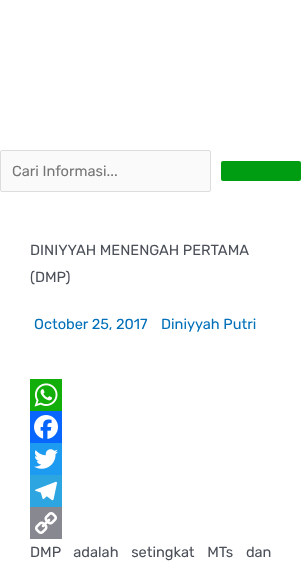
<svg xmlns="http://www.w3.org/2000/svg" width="301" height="574">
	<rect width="100%" height="100%" fill="#FFFFFF" />
	<rect x="0.5" y="150.5" width="210" height="41" rx="1.5" fill="#FAFAFA" stroke="#DDDDDD" />
	<text x="12" y="176" font-family="Rubik" font-size="14.6" font-weight="300" fill="#757575">Cari Informasi...</text>
	<rect x="221" y="161" width="80" height="20" rx="2" fill="#009D12" />
	<g font-family="Rubik" font-size="14.6" font-weight="300" fill="#4B4F58">
		<text x="30" y="255">DINIYYAH MENENGAH PERTAMA</text>
		<text x="30" y="282">(DMP)</text>
	</g>
	<g font-family="Rubik" font-size="14.6" font-weight="300" fill="#0170B9">
		<text x="34" y="329">October 25, 2017</text>
		<text x="161" y="329">Diniyyah Putri</text>
	</g>
	<rect x="30" y="379" width="32" height="32" fill="#12AF0A" />
	<image x="34" y="383" width="24" height="24" href="assets/img1.png" />
	<rect x="30" y="411" width="32" height="32" fill="#0866FF" />
	<image x="34" y="415" width="24" height="24" href="assets/img2.png" />
	<rect x="30" y="443" width="32" height="32" fill="#1D9BF0" />
	<image x="34" y="449" width="24" height="20" href="assets/img3.png" />
	<rect x="30" y="475" width="32" height="32" fill="#2CA5E0" />
	<image x="35" y="481" width="22" height="20" href="assets/img4.png" />
	<rect x="30" y="507" width="32" height="32" fill="#888990" />
	<image x="35" y="512" width="22" height="22" href="assets/img5.png" />
	<text x="30" y="557" word-spacing="9" font-family="Rubik" font-size="14.6" font-weight="300" fill="#4B4F58">DMP adalah setingkat MTs dan</text>
</svg>
